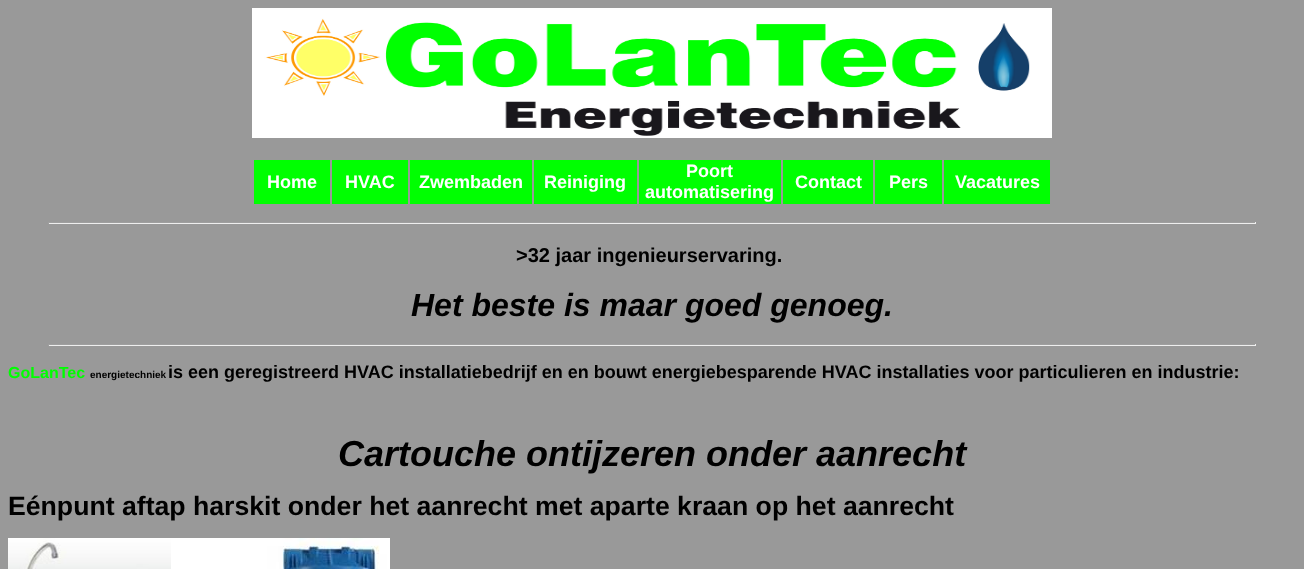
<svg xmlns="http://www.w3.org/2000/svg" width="1304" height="569">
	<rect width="100%" height="100%" fill="#999999" />
	<image x="252" y="8" width="800" height="130" href="assets/img1.png" />
	<rect x="254" y="160" width="76" height="44" fill="#00FF01" />
	<text x="267" y="188" font-family="Liberation Sans" font-size="18" font-weight="700" fill="#FFFFFF">Home</text>
	<rect x="332" y="160" width="76" height="44" fill="#00FF01" />
	<text x="345" y="188" font-family="Liberation Sans" font-size="18" font-weight="700" fill="#FFFFFF">HVAC</text>
	<rect x="410" y="160" width="122" height="44" fill="#00FF01" />
	<text x="419" y="188" font-family="Liberation Sans" font-size="18" font-weight="700" fill="#FFFFFF">Zwembaden</text>
	<rect x="534" y="160" width="103" height="44" fill="#00FF01" />
	<text x="544" y="188" font-family="Liberation Sans" font-size="18" font-weight="700" fill="#FFFFFF">Reiniging</text>
	<rect x="639" y="160" width="142" height="44" fill="#00FF01" />
	<g font-family="Liberation Sans" font-size="18" font-weight="700" fill="#FFFFFF">
		<text x="686" y="177">Poort</text>
		<text x="645" y="198">automatisering</text>
	</g>
	<rect x="783" y="160" width="90" height="44" fill="#00FF01" />
	<text x="795" y="188" font-family="Liberation Sans" font-size="18" font-weight="700" fill="#FFFFFF">Contact</text>
	<rect x="875" y="160" width="67" height="44" fill="#00FF01" />
	<text x="889" y="188" font-family="Liberation Sans" font-size="18" font-weight="700" fill="#FFFFFF">Pers</text>
	<rect x="944" y="160" width="106" height="44" fill="#00FF01" />
	<text x="955" y="188" font-family="Liberation Sans" font-size="18" font-weight="700" fill="#FFFFFF">Vacatures</text>
	<rect x="48" y="222" width="1208" height="1" fill="#9F9F9F" />
	<rect x="1255" y="222" width="1" height="2" fill="#EEEEEE" />
	<rect x="48" y="223" width="1208" height="1" fill="#EEEEEE" />
	<rect x="48" y="222" width="1" height="2" fill="#9F9F9F" />
	<text x="516" y="262" font-family="Liberation Sans" font-size="20" font-weight="700" fill="#000000">&gt;32 jaar ingenieurservaring.</text>
	<text x="411" y="316" font-family="Liberation Sans" font-size="32" font-weight="700" font-style="italic" fill="#000000">Het beste is maar goed genoeg.</text>
	<rect x="48" y="344" width="1208" height="1" fill="#9F9F9F" />
	<rect x="1255" y="344" width="1" height="2" fill="#EEEEEE" />
	<rect x="48" y="345" width="1208" height="1" fill="#EEEEEE" />
	<rect x="48" y="344" width="1" height="2" fill="#9F9F9F" />
	<text x="8" y="378" font-family="Liberation Sans" font-size="16" font-weight="700" fill="#00FF01">GoLanTec</text>
	<text x="90" y="378" font-family="Liberation Sans" font-size="10" font-weight="700" fill="#000000">energietechniek</text>
	<text x="168" y="378" font-family="Liberation Sans" font-size="18" font-weight="700" fill="#000000">is een geregistreerd HVAC installatiebedrijf en en bouwt energiebesparende HVAC installaties voor particulieren en industrie:</text>
	<text x="338" y="466" font-family="Liberation Sans" font-size="36" font-weight="700" font-style="italic" fill="#000000">Cartouche ontijzeren onder aanrecht</text>
	<text x="8" y="515" font-family="Liberation Sans" font-size="26.65" font-weight="700" fill="#000000">Eénpunt aftap harskit onder het aanrecht met aparte kraan op het aanrecht</text>
	<image x="8" y="538" width="163" height="31" href="assets/img2.png" />
	<image x="171" y="538" width="219" height="31" href="assets/img3.png" />
</svg>
